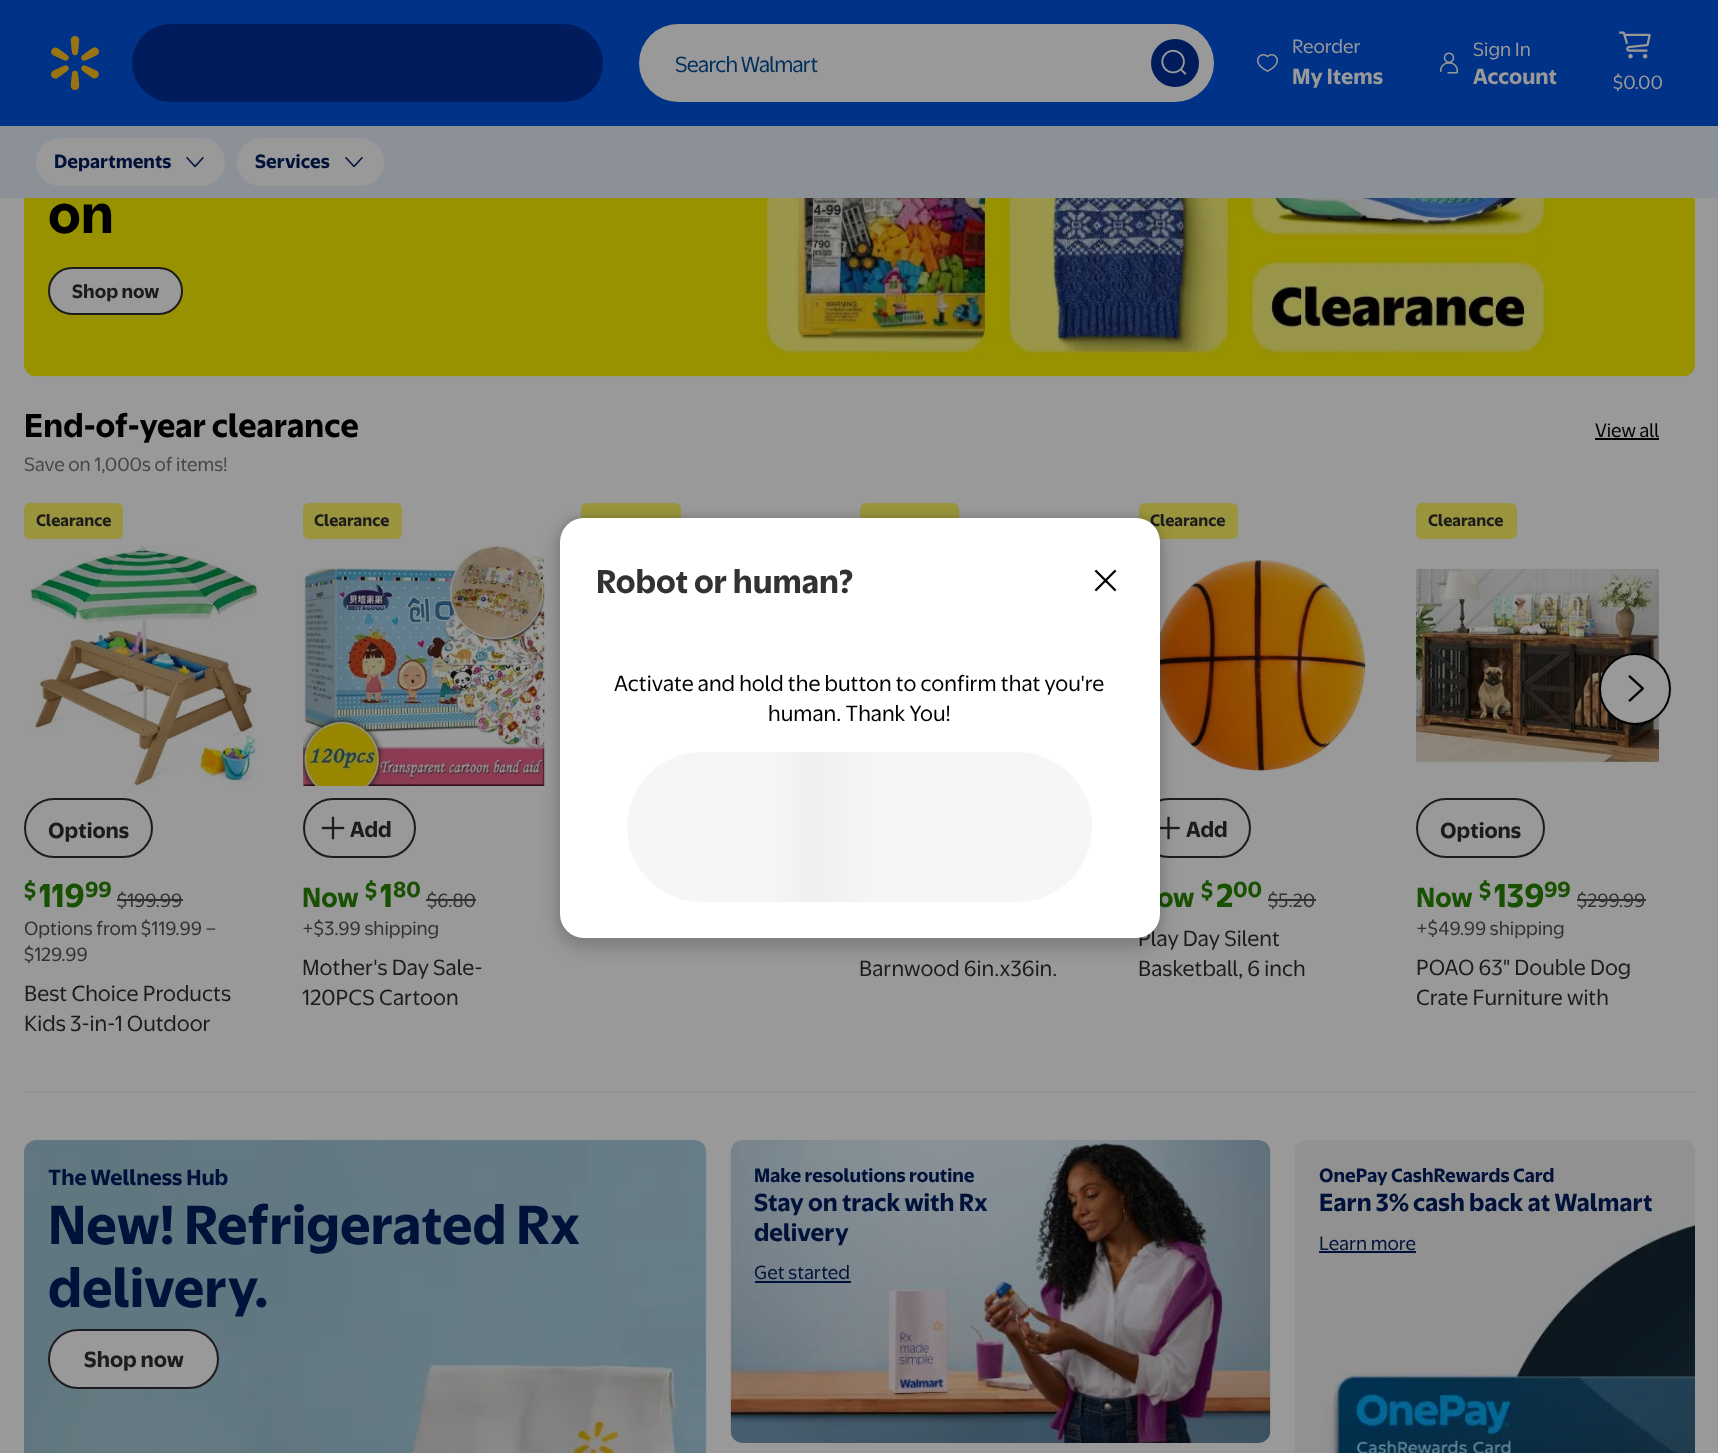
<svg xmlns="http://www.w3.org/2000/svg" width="1718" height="1453">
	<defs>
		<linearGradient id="g1" gradientUnits="userSpaceOnUse" x1="263" y1="827" x2="728" y2="827"><stop offset="0.08" stop-color="#F6F6F6" /><stop offset="0.18" stop-color="#F0F0F0" /><stop offset="0.33" stop-color="#F6F6F6" /></linearGradient>
		<linearGradient id="g2" gradientUnits="userSpaceOnUse" x1="728" y1="827" x2="1193" y2="827"><stop offset="0.08" stop-color="#F6F6F6" /><stop offset="0.18" stop-color="#F0F0F0" /><stop offset="0.33" stop-color="#F6F6F6" /></linearGradient>
	</defs>
	<rect width="100%" height="100%" fill="#999999" />
	<rect x="0" y="0" width="1718" height="126" fill="#003288" />
	<image x="51" y="36" width="48" height="54" href="assets/img1.png" />
	<rect x="132" y="24" width="471" height="78" rx="39" fill="#001C5C" />
	<rect x="639" y="24" width="575" height="78" rx="39" fill="#999999" />
	<text x="675" y="72" font-family="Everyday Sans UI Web" font-size="24" letter-spacing="-0.75" fill="#002F5C">Search Walmart</text>
	<circle cx="1175" cy="63" r="24" fill="#001C5C" />
	<image x="1161" y="49" width="26" height="26" href="assets/img2.png" />
	<image x="1257" y="54" width="21" height="18" href="assets/img3.png" />
	<text x="1292" y="53" font-family="Everyday Sans UI Web" font-size="21" fill="#999999">Reorder</text>
	<text x="1292" y="84" font-family="Everyday Sans UI Web" font-size="24" font-weight="700" fill="#999999">My Items</text>
	<image x="1440" y="52" width="19" height="22" href="assets/img4.png" />
	<text x="1473" y="56" font-family="Everyday Sans UI Web" font-size="21" fill="#999999">Sign In</text>
	<text x="1473" y="84" font-family="Everyday Sans UI Web" font-size="24" font-weight="700" fill="#999999">Account</text>
	<image x="1619" y="31" width="32" height="28" href="assets/img5.png" />
	<text x="1613" y="89" font-family="Everyday Sans UI Web" font-size="21" fill="#999999">$0.00</text>
	<rect x="0" y="126" width="1718" height="72" fill="#8C9198" />
	<rect x="36" y="138" width="189" height="48" rx="24" fill="#999999" />
	<text x="54" y="168" font-family="Everyday Sans UI Web" font-size="21" font-weight="700" fill="#00123A">Departments</text>
	<image x="186" y="156" width="18" height="12" href="assets/img6.png" />
	<rect x="237" y="138" width="147" height="48" rx="24" fill="#999999" />
	<text x="255" y="168" font-family="Everyday Sans UI Web" font-size="21" font-weight="700" fill="#00123A">Services</text>
	<image x="345" y="156" width="18" height="12" href="assets/img6.png" />
	<image x="24" y="198" width="1671" height="179" href="assets/img7.png" />
	<text x="48" y="233" font-family="Everyday Sans UI Web" font-size="60" font-weight="700" fill="#000000">on</text>
	<rect x="49" y="268" width="133" height="46" rx="23" fill="#999999" stroke="#1C1C1E" stroke-width="2" />
	<text x="72" y="298" font-family="Everyday Sans UI Web" font-size="21" font-weight="700" fill="#1C1C1E">Shop now</text>
	<rect x="24" y="1091" width="1671" height="2" fill="#919191" />
	<text x="24" y="437" font-family="Everyday Sans UI Web" font-size="36" font-weight="700" fill="#000000">End-of-year clearance</text>
	<text x="24" y="471" font-family="Everyday Sans UI Web" font-size="21" fill="#46474A">Save on 1,000s of items!</text>
	<text x="1595" y="437" font-family="Everyday Sans UI Web" font-size="21" fill="#000000">View all</text>
	<rect x="1595" y="438" width="64" height="2" fill="#000000" />
	<rect x="24" y="503" width="99" height="36" rx="6" fill="#99943D" />
	<text x="36" y="526" font-family="Everyday Sans UI Web" font-size="18" font-weight="700" fill="#1C1C1E">Clearance</text>
	<image x="29" y="545" width="231" height="241" href="assets/img8.png" />
	<rect x="25" y="799" width="127" height="58" rx="29" fill="none" stroke="#1C1C1E" stroke-width="2" />
	<text x="48" y="838" font-family="Everyday Sans UI Web" font-size="24" font-weight="700" fill="#1C1C1E">Options</text>
	<text x="24" y="898" font-family="Everyday Sans UI Web" font-size="24" font-weight="700" fill="#195102">$</text>
	<text x="39" y="907" font-family="Everyday Sans UI Web" font-size="36" font-weight="700" fill="#195102">119</text>
	<text x="85" y="897" font-family="Everyday Sans UI Web" font-size="24" font-weight="700" fill="#195102">99</text>
	<text x="117" y="907" font-family="Everyday Sans UI Web" font-size="21" fill="#313234">$199.99</text>
	<rect x="117" y="899" width="66" height="2" fill="#313234" />
	<g font-family="Everyday Sans UI Web" font-size="21" fill="#313234">
		<text x="24" y="935">Options from $119.99 –</text>
		<text x="24" y="961">$129.99</text>
	</g>
	<g font-family="Everyday Sans UI Web" font-size="24" fill="#1C1C1E">
		<text x="24" y="1001">Best Choice Products</text>
		<text x="24" y="1031">Kids 3-in-1 Outdoor</text>
	</g>
	<rect x="303" y="503" width="99" height="36" rx="6" fill="#99943D" />
	<text x="314" y="526" font-family="Everyday Sans UI Web" font-size="18" font-weight="700" fill="#1C1C1E">Clearance</text>
	<image x="303" y="545" width="242" height="241" href="assets/img9.png" />
	<rect x="304" y="799" width="111" height="58" rx="29" fill="none" stroke="#1C1C1E" stroke-width="2" />
	<image x="321" y="816" width="24" height="24" href="assets/img10.png" />
	<text x="350" y="837" font-family="Everyday Sans UI Web" font-size="24" font-weight="700" fill="#1C1C1E">Add</text>
	<text x="302" y="907" font-family="Everyday Sans UI Web" font-size="30" font-weight="700" fill="#195102">Now</text>
	<text x="365" y="898" font-family="Everyday Sans UI Web" font-size="24" font-weight="700" fill="#195102">$</text>
	<text x="380" y="907" font-family="Everyday Sans UI Web" font-size="36" font-weight="700" fill="#195102">1</text>
	<text x="393" y="897" font-family="Everyday Sans UI Web" font-size="24" font-weight="700" fill="#195102">80</text>
	<text x="427" y="907" font-family="Everyday Sans UI Web" font-size="21" fill="#313234">$6.80</text>
	<rect x="426" y="899" width="50" height="2" fill="#313234" />
	<text x="302" y="935" font-family="Everyday Sans UI Web" font-size="21" fill="#313234">+$3.99 shipping</text>
	<g font-family="Everyday Sans UI Web" font-size="24" fill="#1C1C1E">
		<text x="302" y="975">Mother's Day Sale-</text>
		<text x="302" y="1005">120PCS Cartoon</text>
	</g>
	<rect x="581" y="503" width="100" height="36" rx="6" fill="#99943D" />
	<rect x="860" y="503" width="99" height="36" rx="6" fill="#99943D" />
	<text x="859" y="976" font-family="Everyday Sans UI Web" font-size="24" fill="#1C1C1E">Barnwood 6in.x36in.</text>
	<rect x="1139" y="503" width="99" height="36" rx="6" fill="#99943D" />
	<text x="1150" y="526" font-family="Everyday Sans UI Web" font-size="18" font-weight="700" fill="#1C1C1E">Clearance</text>
	<image x="1160" y="560" width="206" height="211" href="assets/img11.png" />
	<rect x="1140" y="799" width="110" height="58" rx="29" fill="none" stroke="#1C1C1E" stroke-width="2" />
	<image x="1160" y="816" width="20" height="24" href="assets/img12.png" />
	<text x="1186" y="837" font-family="Everyday Sans UI Web" font-size="24" font-weight="700" fill="#1C1C1E">Add</text>
	<text x="1157" y="907" font-family="Everyday Sans UI Web" font-size="30" font-weight="700" fill="#195102">ow</text>
	<text x="1201" y="898" font-family="Everyday Sans UI Web" font-size="24" font-weight="700" fill="#195102">$</text>
	<text x="1216" y="907" font-family="Everyday Sans UI Web" font-size="36" font-weight="700" fill="#195102">2</text>
	<text x="1233" y="897" font-family="Everyday Sans UI Web" font-size="24" font-weight="700" fill="#195102">00</text>
	<text x="1268" y="907" font-family="Everyday Sans UI Web" font-size="21" fill="#313234">$5.20</text>
	<rect x="1268" y="899" width="48" height="2" fill="#313234" />
	<g font-family="Everyday Sans UI Web" font-size="24" fill="#1C1C1E">
		<text x="1138" y="946">Play Day Silent</text>
		<text x="1138" y="976">Basketball, 6 inch</text>
	</g>
	<rect x="1416" y="503" width="101" height="36" rx="6" fill="#99943D" />
	<text x="1428" y="526" font-family="Everyday Sans UI Web" font-size="18" font-weight="700" fill="#1C1C1E">Clearance</text>
	<image x="1416" y="568" width="243" height="196" href="assets/img13.png" />
	<rect x="1417" y="799" width="127" height="58" rx="29" fill="none" stroke="#1C1C1E" stroke-width="2" />
	<text x="1440" y="838" font-family="Everyday Sans UI Web" font-size="24" font-weight="700" fill="#1C1C1E">Options</text>
	<text x="1416" y="907" font-family="Everyday Sans UI Web" font-size="30" font-weight="700" fill="#195102">Now</text>
	<text x="1479" y="898" font-family="Everyday Sans UI Web" font-size="24" font-weight="700" fill="#195102">$</text>
	<text x="1494" y="907" font-family="Everyday Sans UI Web" font-size="36" font-weight="700" fill="#195102">139</text>
	<text x="1544" y="897" font-family="Everyday Sans UI Web" font-size="24" font-weight="700" fill="#195102">99</text>
	<text x="1577" y="907" font-family="Everyday Sans UI Web" font-size="21" fill="#313234">$299.99</text>
	<rect x="1577" y="899" width="69" height="2" fill="#313234" />
	<text x="1416" y="935" font-family="Everyday Sans UI Web" font-size="21" fill="#313234">+$49.99 shipping</text>
	<g font-family="Everyday Sans UI Web" font-size="24" fill="#1C1C1E">
		<text x="1416" y="975">POAO 63" Double Dog</text>
		<text x="1416" y="1005">Crate Furniture with</text>
	</g>
	<circle cx="1635" cy="689" r="35" fill="#999999" stroke="#000000" stroke-width="2" />
	<image x="1628" y="675" width="16" height="27" href="assets/img14.png" />
	<image x="24" y="1140" width="683" height="313" href="assets/img15.png" />
	<text x="48" y="1185" font-family="Everyday Sans UI Web" font-size="24" font-weight="700" fill="#00123A">The Wellness Hub</text>
	<g font-family="Everyday Sans UI Web" font-size="60" font-weight="700" fill="#00123A">
		<text x="48" y="1244">New! Refrigerated Rx</text>
		<text x="48" y="1307">delivery.</text>
	</g>
	<rect x="49" y="1330" width="169" height="58" rx="29" fill="#999999" stroke="#1C1C1E" stroke-width="2" />
	<text x="84" y="1367" font-family="Everyday Sans UI Web" font-size="24" font-weight="700" fill="#1C1C1E">Shop now</text>
	<image x="730" y="1140" width="541" height="303" href="assets/img16.png" />
	<text x="754" y="1182" font-family="Everyday Sans UI Web" font-size="21" font-weight="700" fill="#00123A">Make resolutions routine</text>
	<g font-family="Everyday Sans UI Web" font-size="27" font-weight="700" fill="#00123A">
		<text x="754" y="1211">Stay on track with Rx</text>
		<text x="754" y="1241">delivery</text>
	</g>
	<text x="754" y="1279" font-family="Everyday Sans UI Web" font-size="21" fill="#00123A">Get started</text>
	<rect x="755" y="1281" width="96" height="2" fill="#00123A" />
	<image x="1295" y="1140" width="400" height="313" href="assets/img17.png" />
	<text x="1319" y="1182" font-family="Everyday Sans UI Web" font-size="21" font-weight="700" fill="#00123A">OnePay CashRewards Card</text>
	<text x="1319" y="1211" font-family="Everyday Sans UI Web" font-size="27" font-weight="700" fill="#00123A">Earn 3% cash back at Walmart</text>
	<text x="1319" y="1250" font-family="Everyday Sans UI Web" font-size="21" fill="#00123A">Learn more</text>
	<rect x="1319" y="1251" width="97" height="2" fill="#00123A" />
	<rect x="560" y="516" width="600" height="420" rx="24" fill="#000000" fill-opacity="0.1" filter="blur(3px)" />
	<rect x="555" y="521" width="609" height="429" rx="29" fill="#000000" fill-opacity="0.15" filter="blur(7.5px)" />
	<rect x="560" y="518" width="600" height="420" rx="24" fill="#FFFFFF" />
	<text x="596" y="593" font-family="Everyday Sans UI Web" font-size="36" font-weight="700" fill="#313234">Robot or human?</text>
	<image x="1094" y="569" width="23" height="23" href="assets/img18.png" />
	<g font-family="Everyday Sans UI Web" font-size="24" fill="#000000">
		<text x="614" y="691">Activate and hold the button to confirm that you're</text>
		<text x="768" y="721">human. Thank You!</text>
	</g>
	<path d="M702 752H729V902H702C660.5 902 627 868.5 627 827C627 785.5 660.5 752 702 752Z" fill="url(#g1)" />
	<path d="M729 752H1017C1058.5 752 1092 785.5 1092 827C1092 868.5 1058.5 902 1017 902H729Z" fill="url(#g2)" />
</svg>
